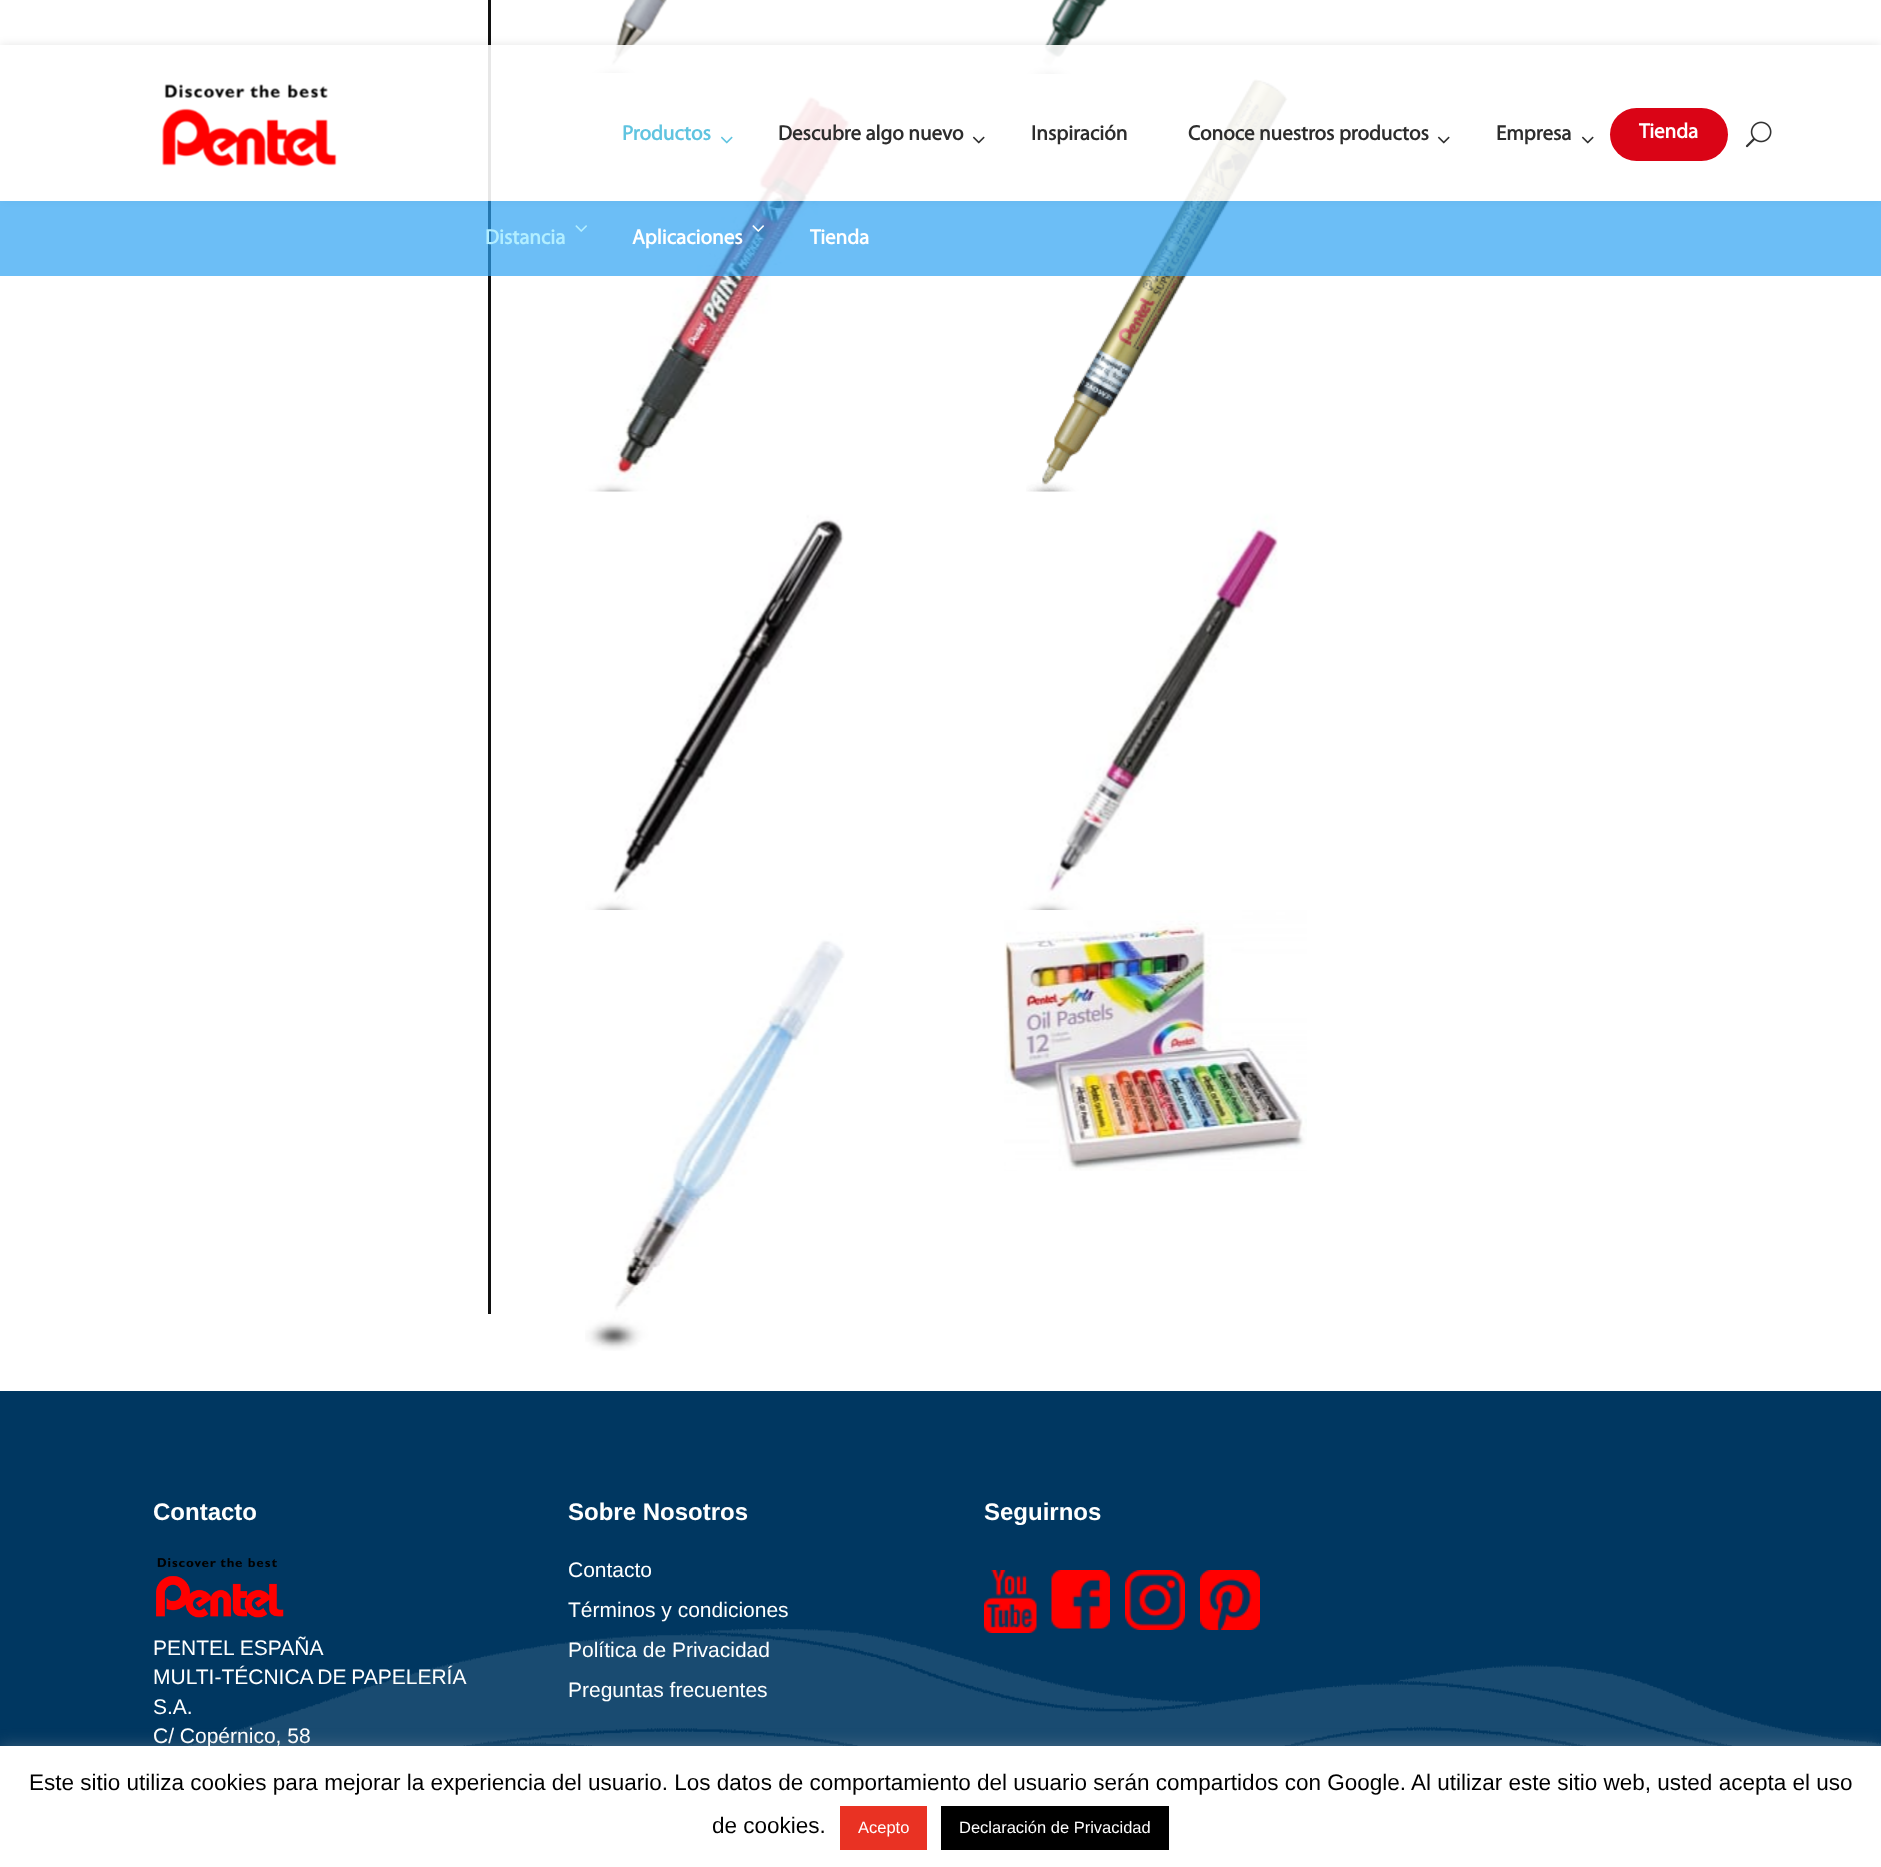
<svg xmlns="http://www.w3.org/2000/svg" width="1881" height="1867">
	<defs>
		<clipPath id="clip1"><path d="M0 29H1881V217H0ZM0 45H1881V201H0Z" clip-rule="evenodd" /></clipPath>
	</defs>
	<rect width="100%" height="100%" fill="#FFFFFF" />
	<rect x="488" y="0" width="3" height="1314" fill="#111111" />
	<image x="590" y="0" width="77" height="73" href="assets/img7.png" />
	<image x="1024" y="0" width="83" height="74" href="assets/img8.png" />
	<image x="585" y="73" width="275" height="420" href="assets/img9.png" />
	<image x="1026" y="78" width="262" height="414" href="assets/img10.png" />
	<g clip-path="url(#clip1)">
		<rect x="0" y="45" width="1881" height="156" fill="#000000" fill-opacity="0.1" filter="blur(5px)" />
	</g>
	<rect x="488" y="45" width="800" height="156" fill="#FFFFFF" fill-opacity="0.9" />
	<image x="162" y="84" width="175" height="83" href="assets/img1.png" />
	<text x="622" y="140" font-family="Myriad" font-size="21" font-weight="700" fill="#60C4E0">Productos</text>
	<image x="721" y="136" width="12" height="8" href="assets/img2.png" />
	<rect x="131" y="201" width="1750" height="75" fill="#2EA3F2" fill-opacity="0.7" />
	<rect x="0" y="201" width="131" height="75" fill="#2EA3F2" fill-opacity="0.7" />
	<text x="485" y="244" font-family="Myriad" font-size="21" font-weight="700" fill="#B2EEFF">Distancia</text>
	<image x="575" y="225" width="12" height="7" href="assets/img3.png" />
	<text x="632" y="244" font-family="Myriad" font-size="21" font-weight="700" fill="#FFFFFF">Aplicaciones</text>
	<image x="752" y="225" width="12" height="7" href="assets/img4.png" />
	<text x="810" y="244" font-family="Myriad" font-size="21" font-weight="700" fill="#FFFFFF">Tienda</text>
	<text x="778" y="140" font-family="Myriad" font-size="21" font-weight="700" fill="#2D2D2D">Descubre algo nuevo</text>
	<image x="972" y="136" width="13" height="8" href="assets/img5.png" />
	<g font-family="Myriad" font-size="21" font-weight="700" fill="#2D2D2D">
		<text x="1031" y="140">Inspiración</text>
		<text x="1188" y="140">Conoce nuestros productos</text>
	</g>
	<image x="1437" y="136" width="13" height="8" href="assets/img5.png" />
	<text x="1496" y="140" font-family="Myriad" font-size="21" font-weight="700" fill="#2D2D2D">Empresa</text>
	<image x="1581" y="136" width="13" height="8" href="assets/img5.png" />
	<rect x="1610" y="108" width="118" height="53" rx="26.5" fill="#DA0416" />
	<text x="1639" y="138" font-family="Myriad" font-size="21" font-weight="700" fill="#FFFFFF">Tienda</text>
	<image x="1745" y="121" width="27" height="27" href="assets/img6.png" />
	<rect x="554" y="492" width="310" height="450" rx="6" fill="#FFFFFF" />
	<image x="585" y="491" width="259" height="419" href="assets/img11.png" />
	<image x="1020" y="491" width="258" height="419" href="assets/img12.png" />
	<image x="585" y="910" width="260" height="441" href="assets/img13.png" />
	<image x="1004" y="910" width="303" height="261" href="assets/img14.png" />
	<image x="0" y="1391" width="1881" height="355" href="assets/img15.png" />
	<text x="153" y="1520" font-family="Liberation Sans" font-size="24" font-weight="700" fill="#FFFFFF">Contacto</text>
	<image x="156" y="1558" width="128" height="60" href="assets/img16.png" />
	<g font-family="Liberation Sans" font-size="21" fill="#FFFFFF">
		<text x="153" y="1655">PENTEL ESPAÑA</text>
		<text x="153" y="1684" word-spacing="-1">MULTI-TÉCNICA DE PAPELERÍA</text>
		<text x="153" y="1714">S.A.</text>
		<text x="153" y="1743">C/ Copérnico, 58</text>
	</g>
	<text x="568" y="1520" font-family="Liberation Sans" font-size="24" font-weight="700" fill="#FFFFFF">Sobre Nosotros</text>
	<g font-family="Liberation Sans" font-size="21" fill="#FFFFFF">
		<text x="568" y="1577">Contacto</text>
		<text x="568" y="1617">Términos y condiciones</text>
		<text x="568" y="1657">Política de Privacidad</text>
		<text x="568" y="1697">Preguntas frecuentes</text>
	</g>
	<text x="984" y="1520" font-family="Liberation Sans" font-size="24" font-weight="700" fill="#FFFFFF">Seguirnos</text>
	<image x="984" y="1570" width="53" height="63" href="assets/img17.png" />
	<image x="1051" y="1570" width="59" height="59" href="assets/img18.png" />
	<image x="1125" y="1570" width="60" height="60" href="assets/img19.png" />
	<image x="1200" y="1570" width="60" height="60" href="assets/img20.png" />
	<rect x="0" y="1745" width="1881" height="121" fill="#ACABAB" fill-opacity="0.3" filter="blur(7.5px)" />
	<rect x="0" y="1746" width="1881" height="121" fill="#FFFFFF" />
	<g font-family="Liberation Sans" font-size="22.5" fill="#000000">
		<text x="29" y="1790">Este sitio utiliza cookies para mejorar la experiencia del usuario. Los datos de comportamiento del usuario serán compartidos con Google. Al utilizar este sitio web, usted acepta el uso</text>
		<text x="712" y="1833">de cookies.</text>
	</g>
	<rect x="840" y="1806" width="87" height="44" fill="#E93223" />
	<text x="858" y="1833" font-family="Liberation Sans" font-size="16.5" fill="#FFFFFF">Acepto</text>
	<rect x="941" y="1806" width="228" height="44" fill="#000000" />
	<text x="959" y="1833" font-family="Liberation Sans" font-size="16.5" fill="#FFFFFF">Declaración de Privacidad</text>
</svg>
